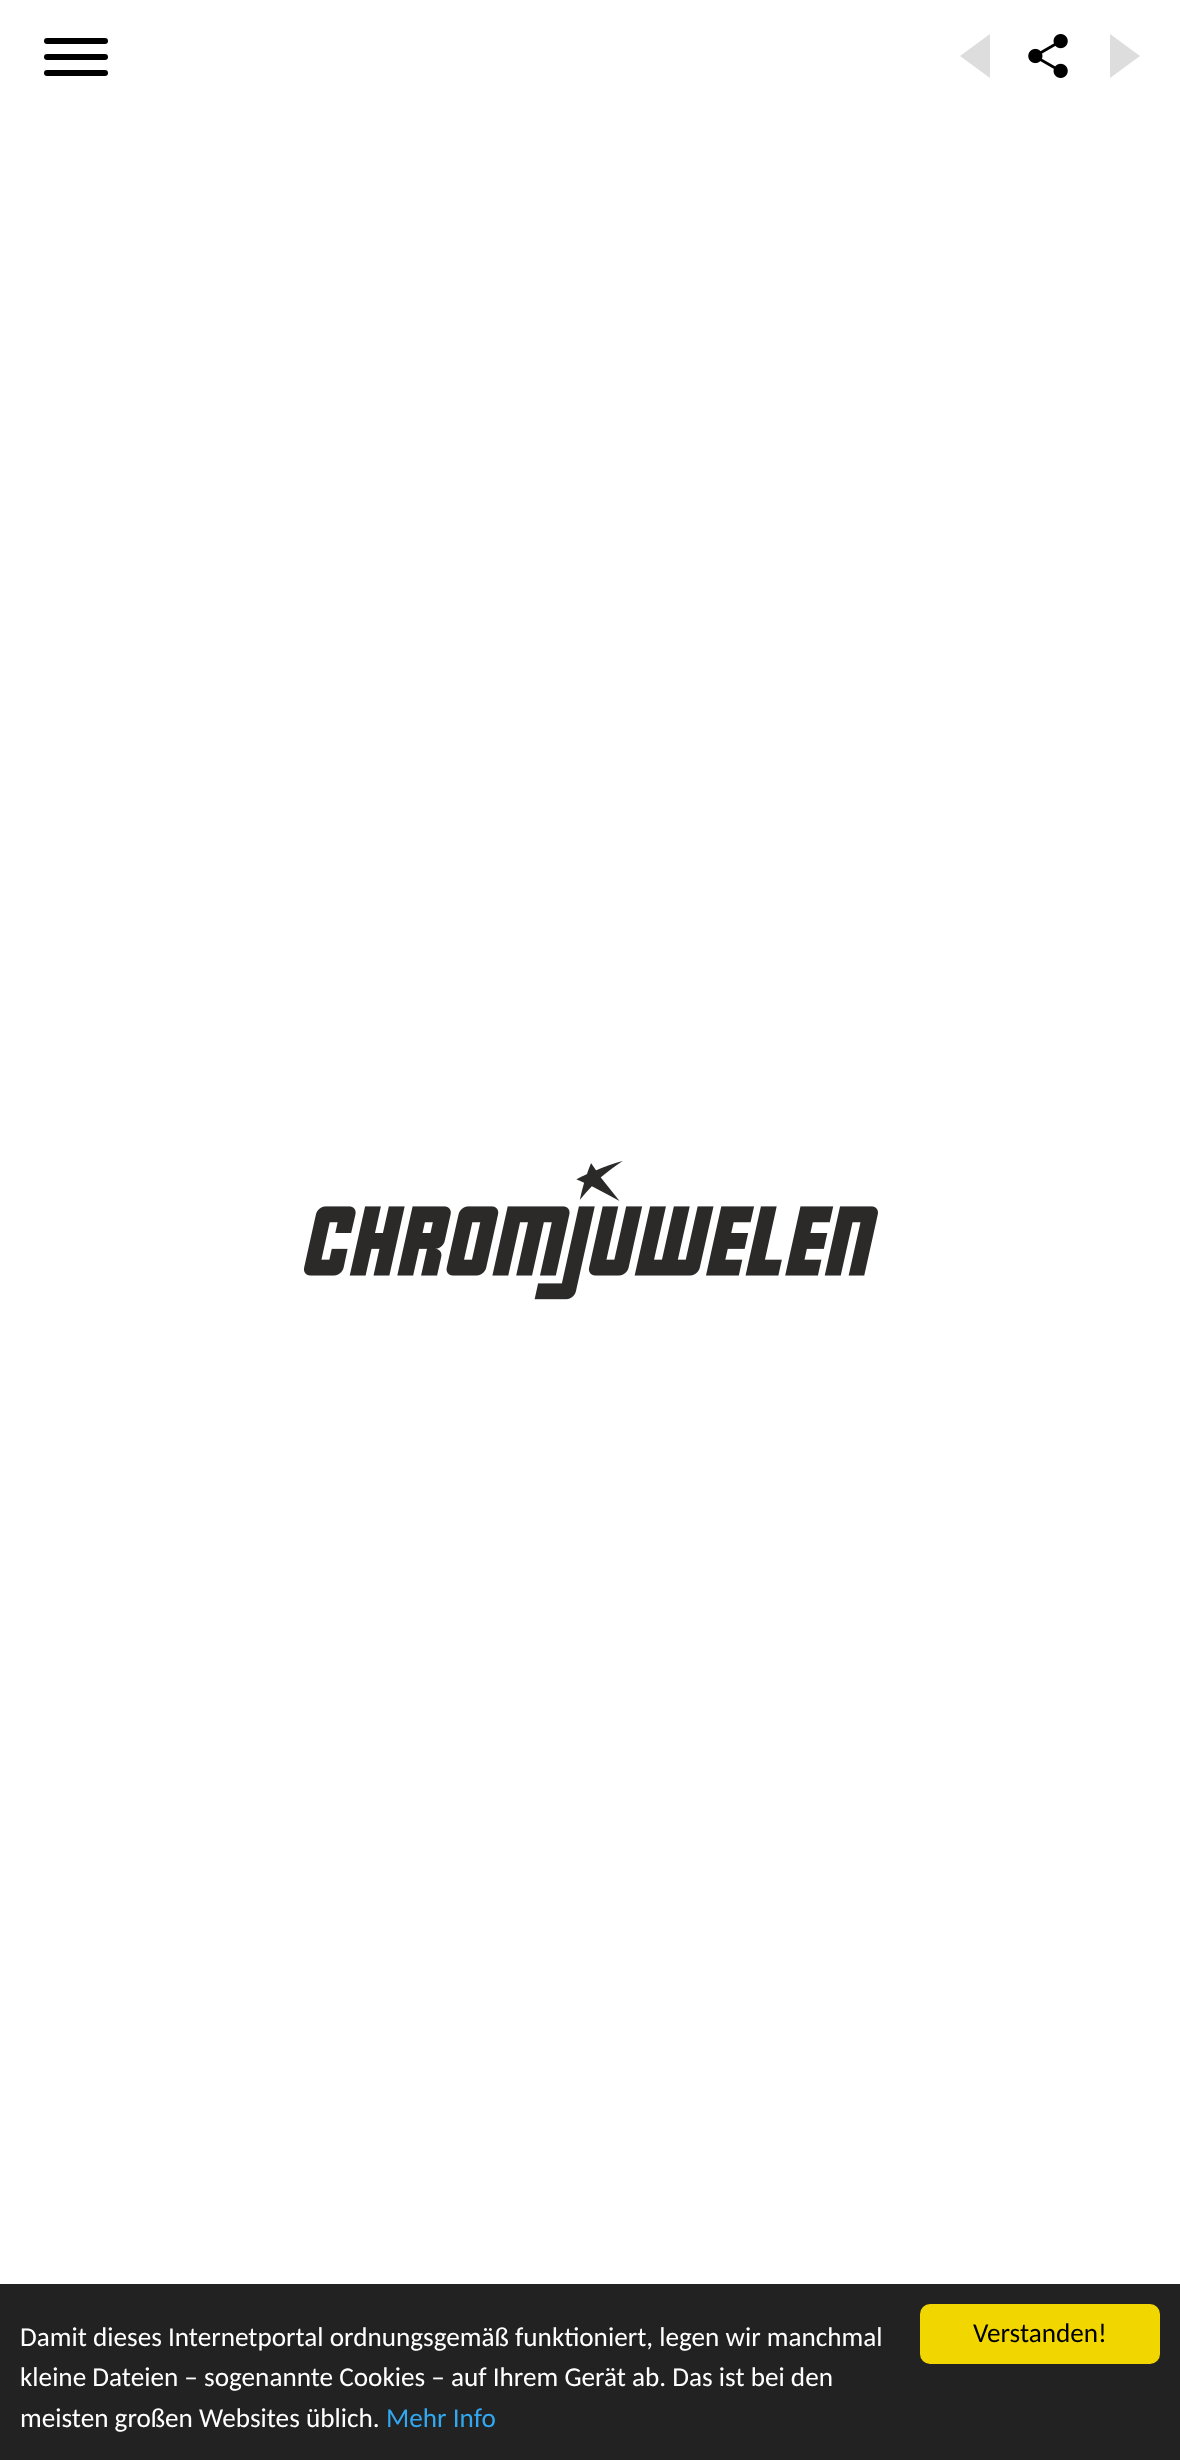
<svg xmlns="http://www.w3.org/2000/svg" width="1180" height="2460">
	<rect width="100%" height="100%" fill="#FFFFFF" />
	<path d="M990 34V78L960 56Z" fill="#DDDDDD" />
	<path d="M1110 78V34L1140 56Z" fill="#DDDDDD" />
	<rect x="44" y="38" width="64" height="6" rx="3" fill="#000000" />
	<rect x="44" y="54" width="64" height="6" rx="3" fill="#000000" />
	<rect x="44" y="70" width="64" height="6" rx="3" fill="#000000" />
	<image x="1028" y="34" width="40" height="44" href="assets/img1.png" />
	<image x="304" y="1161" width="574" height="139" href="assets/img2.png" />
	<rect x="0" y="2284" width="1180" height="176" fill="#222222" />
	<g font-family="Carlito" font-size="27.2" fill="#FFFFFF">
		<text x="20" y="2346">Damit dieses Internetportal ordnungsgemäß funktioniert, legen wir manchmal</text>
		<text x="20" y="2386">kleine Dateien – sogenannte Cookies – auf Ihrem Gerät ab. Das ist bei den</text>
		<text x="20" y="2427">meisten großen Websites üblich.</text>
	</g>
	<text x="386" y="2427" font-family="Carlito" font-size="27.2" fill="#31A8F0">Mehr Info</text>
	<rect x="920" y="2304" width="240" height="60" rx="10" fill="#F1D600" />
	<text x="973" y="2342" font-family="Carlito" font-size="27.2" fill="#000000">Verstanden!</text>
</svg>
